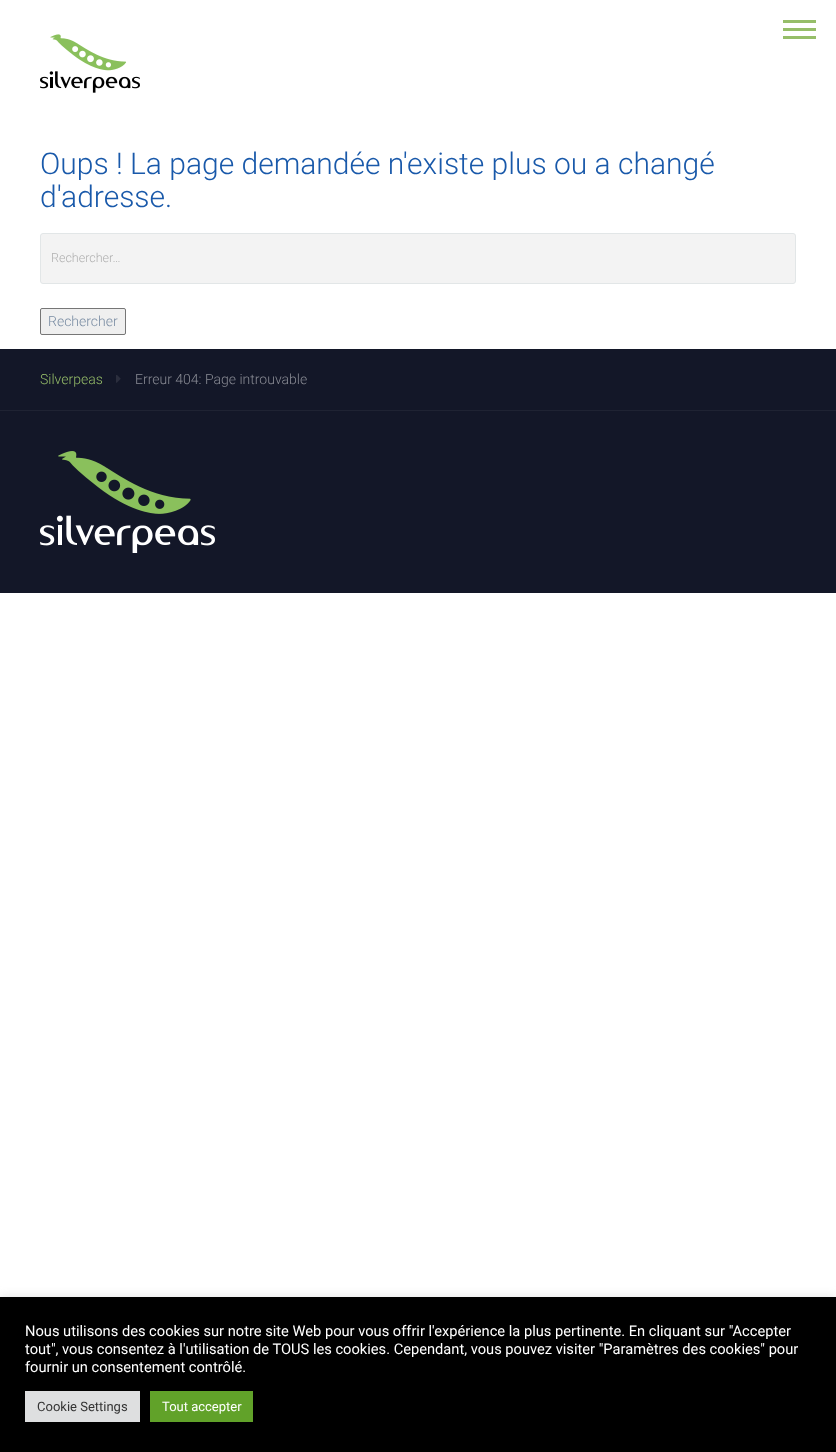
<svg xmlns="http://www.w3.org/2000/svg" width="836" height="1452">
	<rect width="100%" height="100%" fill="#FFFFFF" />
	<rect x="783" y="20" width="33" height="3" fill="#96BE69" />
	<rect x="783" y="28" width="33" height="3" fill="#96BE69" />
	<rect x="783" y="36" width="33" height="3" fill="#96BE69" />
	<image x="40" y="34" width="100" height="59" href="assets/img1.png" />
	<g font-family="Roboto" font-size="30" font-weight="300" fill="#1959AA">
		<text x="40" y="174">Oups ! La page demandée n'existe plus ou a changé</text>
		<text x="40" y="207">d'adresse.</text>
	</g>
	<rect x="40.5" y="233.5" width="755" height="50" rx="2.5" fill="#F3F3F3" stroke="#E2E6E7" />
	<text x="51" y="262" font-family="Roboto" font-size="12.5" font-weight="300" fill="#B0B0B0">Rechercher…</text>
	<rect x="40.5" y="308.5" width="85" height="26" rx="1.5" fill="#EFEFEF" stroke="#767676" />
	<text x="48" y="326" font-family="Roboto" font-size="14" font-weight="300" fill="#788BA2">Rechercher</text>
	<rect x="0" y="349" width="836" height="244" fill="#131728" />
	<rect x="0" y="410" width="836" height="1" fill="#1F2333" />
	<text x="40" y="384" font-family="Roboto" font-size="14" font-weight="300" fill="#96BE69">Silverpeas</text>
	<image x="116" y="375" width="5" height="8" href="assets/img2.png" />
	<text x="135" y="384" font-family="Roboto" font-size="14" font-weight="300" fill="#898B94">Erreur 404: Page introuvable</text>
	<image x="40" y="451" width="175" height="102" href="assets/img3.png" />
	<rect x="0" y="1296" width="836" height="155" fill="#ACABAB" fill-opacity="0.3" filter="blur(5px)" />
	<rect x="0" y="1297" width="836" height="155" fill="#000000" />
	<g font-family="Roboto" font-size="14.67" fill="#FFFFFF">
		<text x="25" y="1336">Nous utilisons des cookies sur notre site Web pour vous offrir l'expérience la plus pertinente. En cliquant sur "Accepter</text>
		<text x="25" y="1354">tout", vous consentez à l'utilisation de TOUS les cookies. Cependant, vous pouvez visiter "Paramètres des cookies" pour</text>
		<text x="25" y="1372">fournir un consentement contrôlé.</text>
	</g>
	<rect x="25" y="1391" width="115" height="31" fill="#DEDFE0" />
	<text x="37" y="1411" font-family="Roboto" font-size="13" fill="#333333">Cookie Settings</text>
	<rect x="150" y="1391" width="103" height="31" fill="#61A229" />
	<text x="162" y="1411" font-family="Roboto" font-size="13" fill="#FFFFFF">Tout accepter</text>
</svg>
